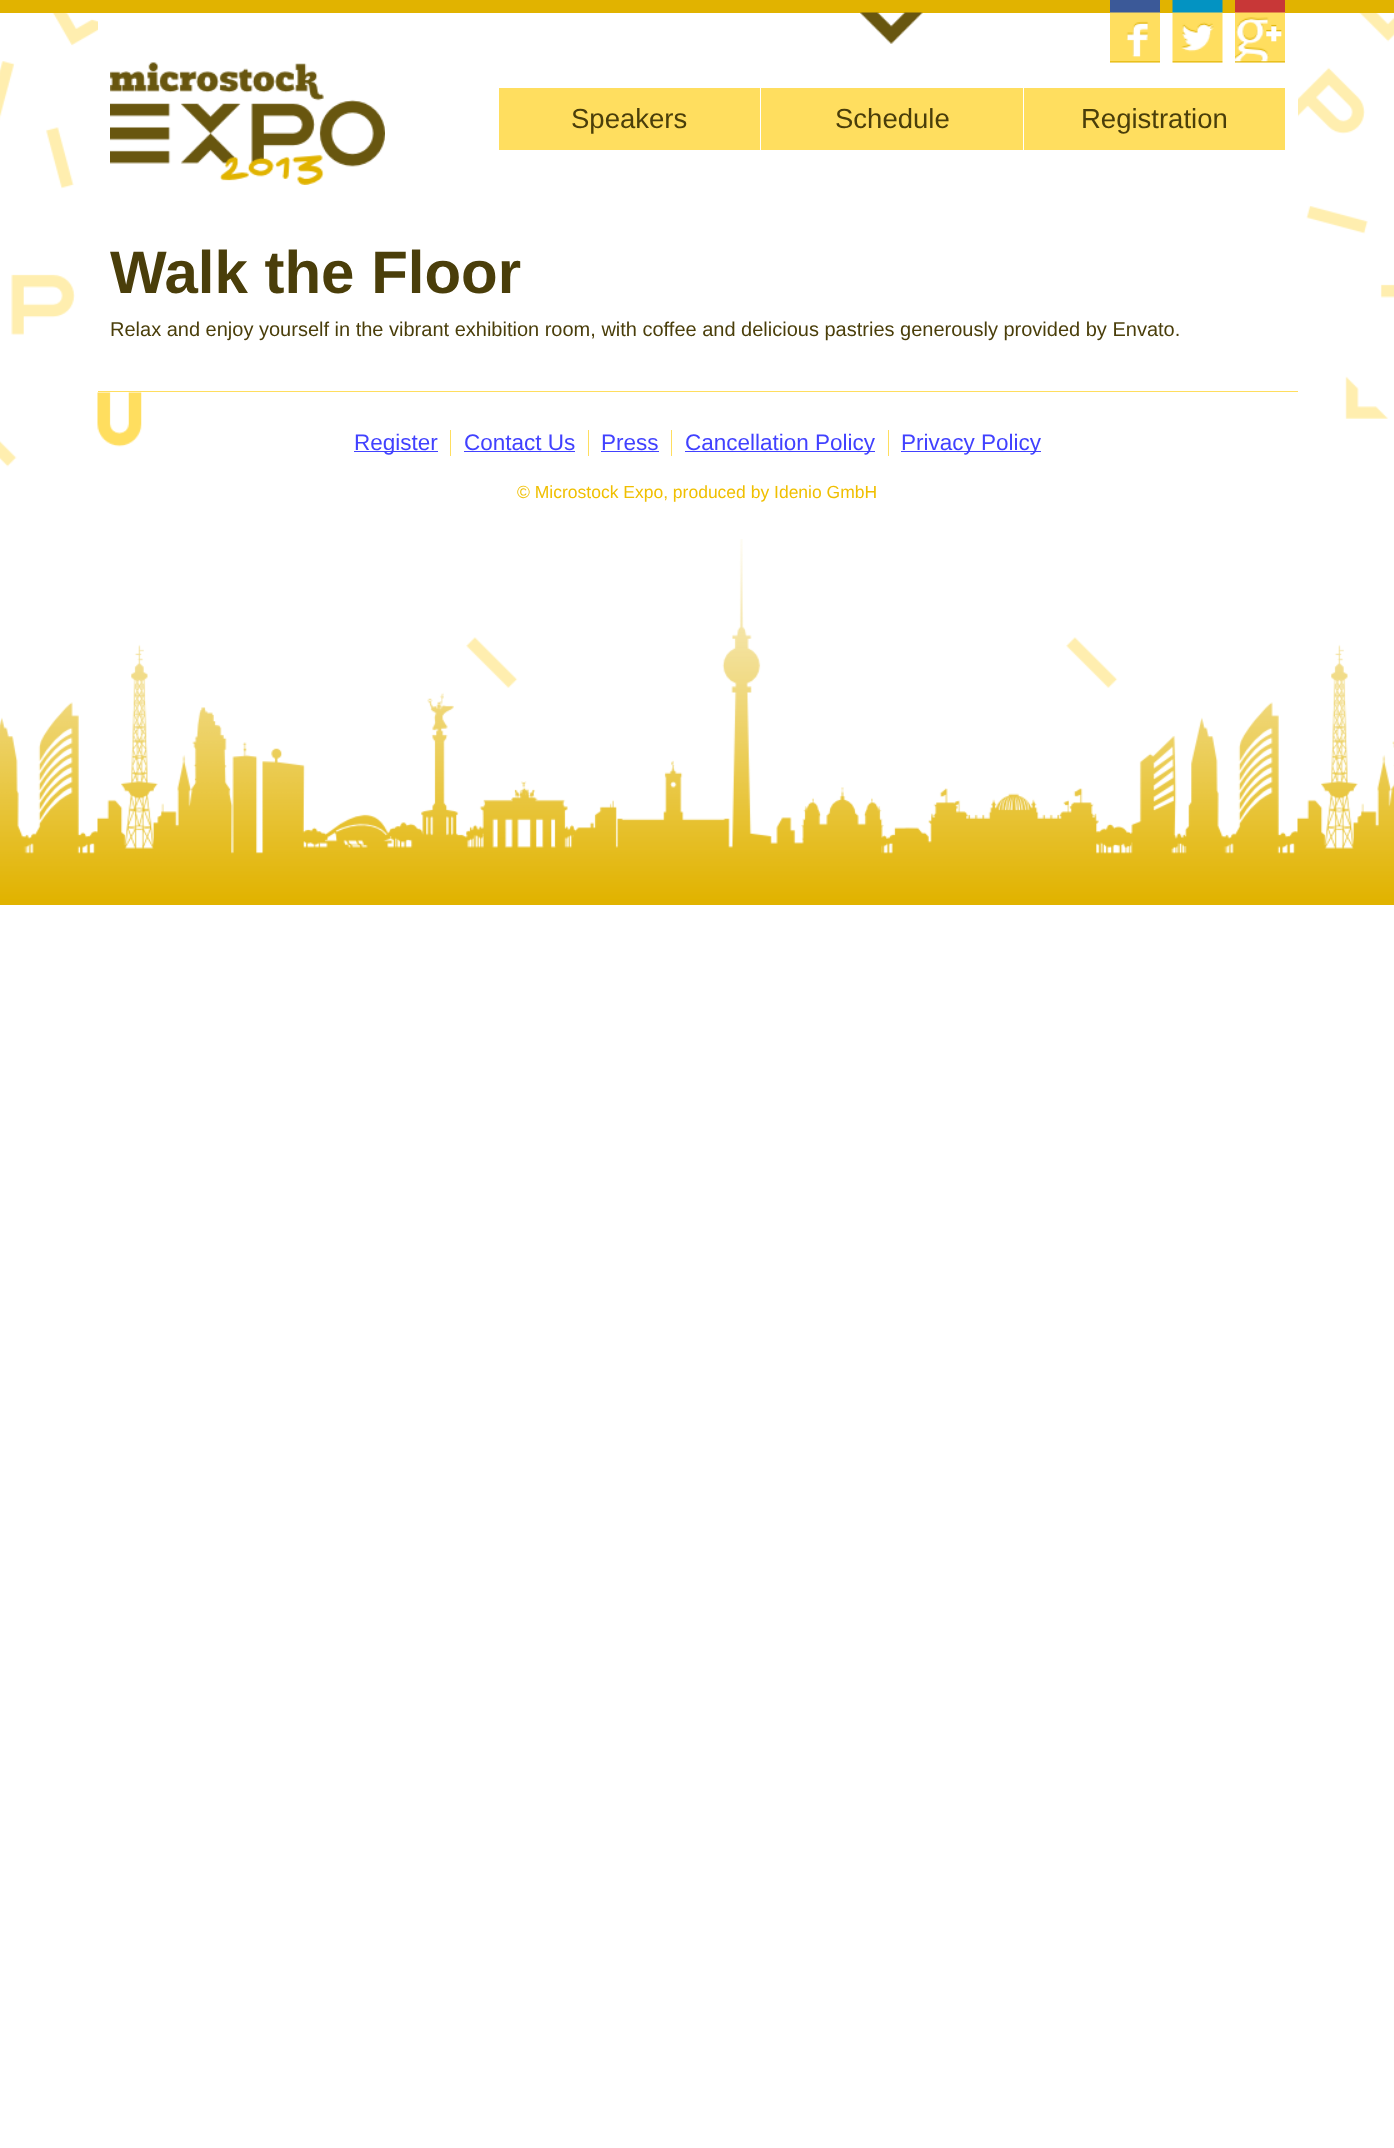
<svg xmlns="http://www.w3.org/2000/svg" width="1394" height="2148">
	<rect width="100%" height="100%" fill="#FFFFFF" />
	<image x="0" y="13" width="1394" height="892" href="assets/img1.png" />
	<rect x="0" y="0" width="1394" height="13" fill="#E1B300" />
	<rect x="98" y="13" width="1200" height="526" fill="#FFFFFF" />
	<image x="860" y="12" width="63" height="32" href="assets/img2.png" />
	<image x="1110" y="0" width="50" height="63" href="assets/img3.png" />
	<image x="1172" y="0" width="51" height="63" href="assets/img4.png" />
	<image x="1235" y="0" width="50" height="63" href="assets/img5.png" />
	<image x="110" y="62" width="275" height="123" href="assets/img6.png" />
	<rect x="499" y="88" width="261" height="62" fill="#FFDE5F" />
	<text x="571" y="128" font-family="Liberation Sans" font-size="27.5" fill="#4A3E0A">Speakers</text>
	<rect x="761" y="88" width="262" height="62" fill="#FFDE5F" />
	<text x="835" y="128" font-family="Liberation Sans" font-size="27.5" fill="#4A3E0A">Schedule</text>
	<rect x="1024" y="88" width="261" height="62" fill="#FFDE5F" />
	<text x="1081" y="128" font-family="Liberation Sans" font-size="27.5" fill="#4A3E0A">Registration</text>
	<text x="110" y="293" font-family="Liberation Sans" font-size="60" font-weight="700" fill="#4A3E0A">Walk the Floor</text>
	<text x="110" y="336" font-family="Liberation Sans" font-size="20" fill="#4A3E0A">Relax and enjoy yourself in the vibrant exhibition room, with coffee and delicious pastries generously provided by Envato.</text>
	<image x="97" y="392" width="45" height="55" href="assets/img7.png" />
	<rect x="98" y="391" width="1200" height="1" fill="#FFDE5F" />
	<rect x="354" y="451" width="84" height="1" fill="#4141FF" />
	<text x="354" y="450" font-family="Liberation Sans" font-size="22.5" fill="#4141FF">Register</text>
	<rect x="450" y="430" width="1" height="26" fill="#FFDE5F" />
	<text x="464" y="450" font-family="Liberation Sans" font-size="22.5" fill="#4141FF">Contact Us</text>
	<rect x="464" y="451" width="111" height="1" fill="#4141FF" />
	<rect x="588" y="430" width="1" height="26" fill="#FFDE5F" />
	<text x="601" y="450" font-family="Liberation Sans" font-size="22.5" fill="#4141FF">Press</text>
	<rect x="601" y="451" width="58" height="1" fill="#4141FF" />
	<rect x="671" y="430" width="1" height="26" fill="#FFDE5F" />
	<rect x="685" y="451" width="190" height="1" fill="#4141FF" />
	<text x="685" y="450" font-family="Liberation Sans" font-size="22.5" fill="#4141FF">Cancellation Policy</text>
	<rect x="888" y="430" width="1" height="26" fill="#FFDE5F" />
	<rect x="901" y="451" width="140" height="1" fill="#4141FF" />
	<text x="901" y="450" font-family="Liberation Sans" font-size="22.5" fill="#4141FF">Privacy Policy</text>
	<text x="517" y="498" font-family="Liberation Sans" font-size="17.5" fill="#F0BF00">© Microstock Expo, produced by Idenio GmbH</text>
</svg>
